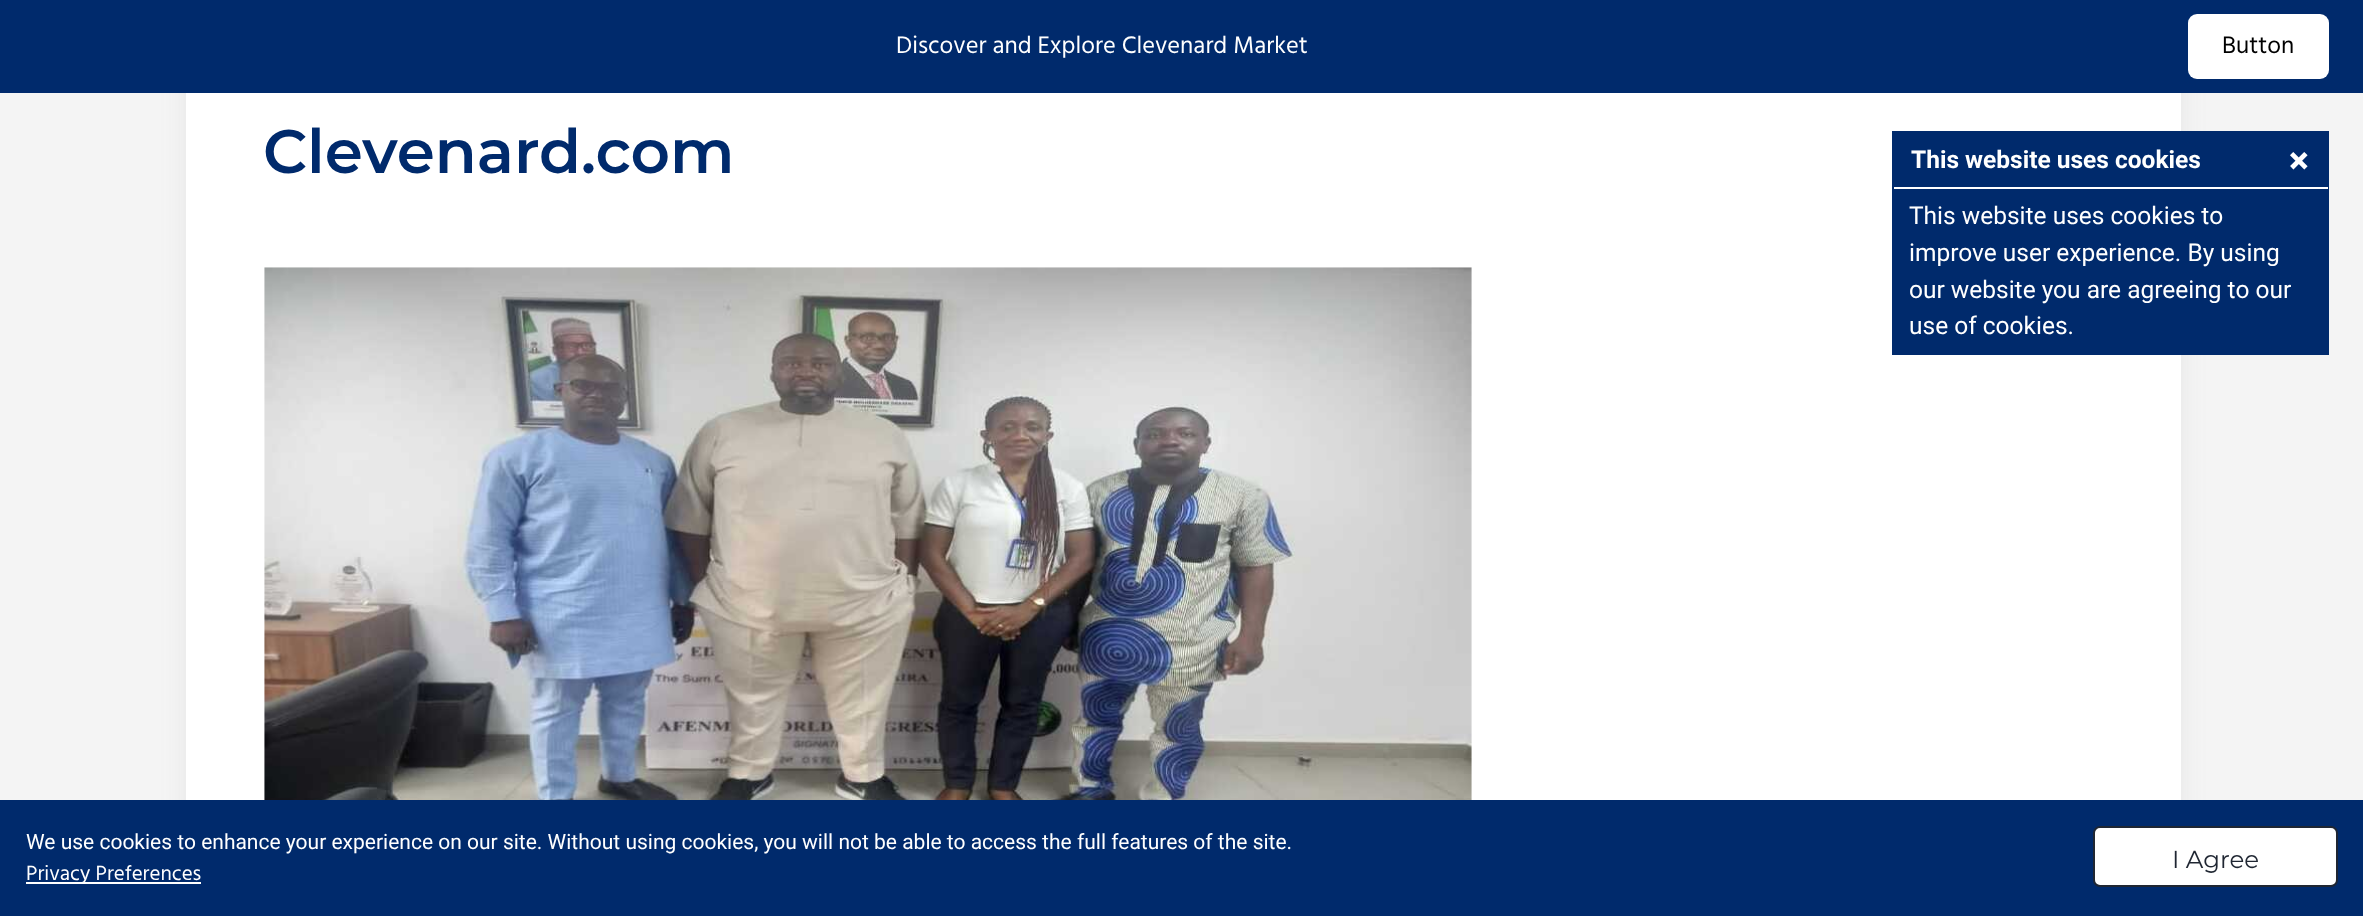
<svg xmlns="http://www.w3.org/2000/svg" width="2363" height="916">
	<rect width="100%" height="100%" fill="#F4F4F4" />
	<rect x="186" y="-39" width="1995" height="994" fill="#808080" fill-opacity="0.11" filter="blur(13px)" />
	<rect x="0" y="0" width="2363" height="93" fill="#002A6C" />
	<text x="896" y="53" font-family="Hind" font-size="24.5" fill="#FFFFFF">Discover and Explore Clevenard Market</text>
	<rect x="2188" y="14" width="141" height="65" rx="9" fill="#FFFFFF" />
	<text x="2222" y="53" font-family="Hind" font-size="24.5" fill="#000000">Button</text>
	<rect x="186" y="93" width="1995" height="707" fill="#FFFFFF" />
	<text x="263" y="173" font-family="Montserrat" font-size="61.25" font-weight="600" fill="#002A6C">Clevenard.com</text>
	<image x="264" y="267" width="1208" height="533" href="assets/img1.png" />
	<rect x="1892" y="131" width="437" height="224" fill="#002A6C" />
	<rect x="1894" y="187" width="434" height="2" fill="#FFFFFF" />
	<text x="1911" y="168" font-family="Roboto" font-size="24.5" font-weight="700" fill="#FFFFFF">This website uses cookies</text>
	<text x="2288" y="175" font-family="Hind" font-size="42" font-weight="600" fill="#FFFFFF">×</text>
	<g font-family="Roboto" font-size="24.5" fill="#FFFFFF">
		<text x="1909" y="224">This website uses cookies to</text>
		<text x="1909" y="261">improve user experience. By using</text>
		<text x="1909" y="298">our website you are agreeing to our</text>
		<text x="1909" y="334">use of cookies.</text>
	</g>
	<rect x="0" y="800" width="2363" height="116" fill="#002A6C" />
	<text x="26" y="849" font-family="Roboto" font-size="21" fill="#FFFFFF">We use cookies to enhance your experience on our site. Without using cookies, you will not be able to access the full features of the site.</text>
	<rect x="26" y="882" width="175" height="2" fill="#FFFFFF" />
	<text x="26" y="880" font-family="Hind" font-size="21" fill="#FFFFFF">Privacy Preferences</text>
	<rect x="2094" y="827" width="243" height="59" rx="6" fill="#FFFFFF" stroke="#1F2632" stroke-width="2" />
	<text x="2172" y="868" font-family="Montserrat" font-size="24.5" fill="#1F2632">I Agree</text>
</svg>
